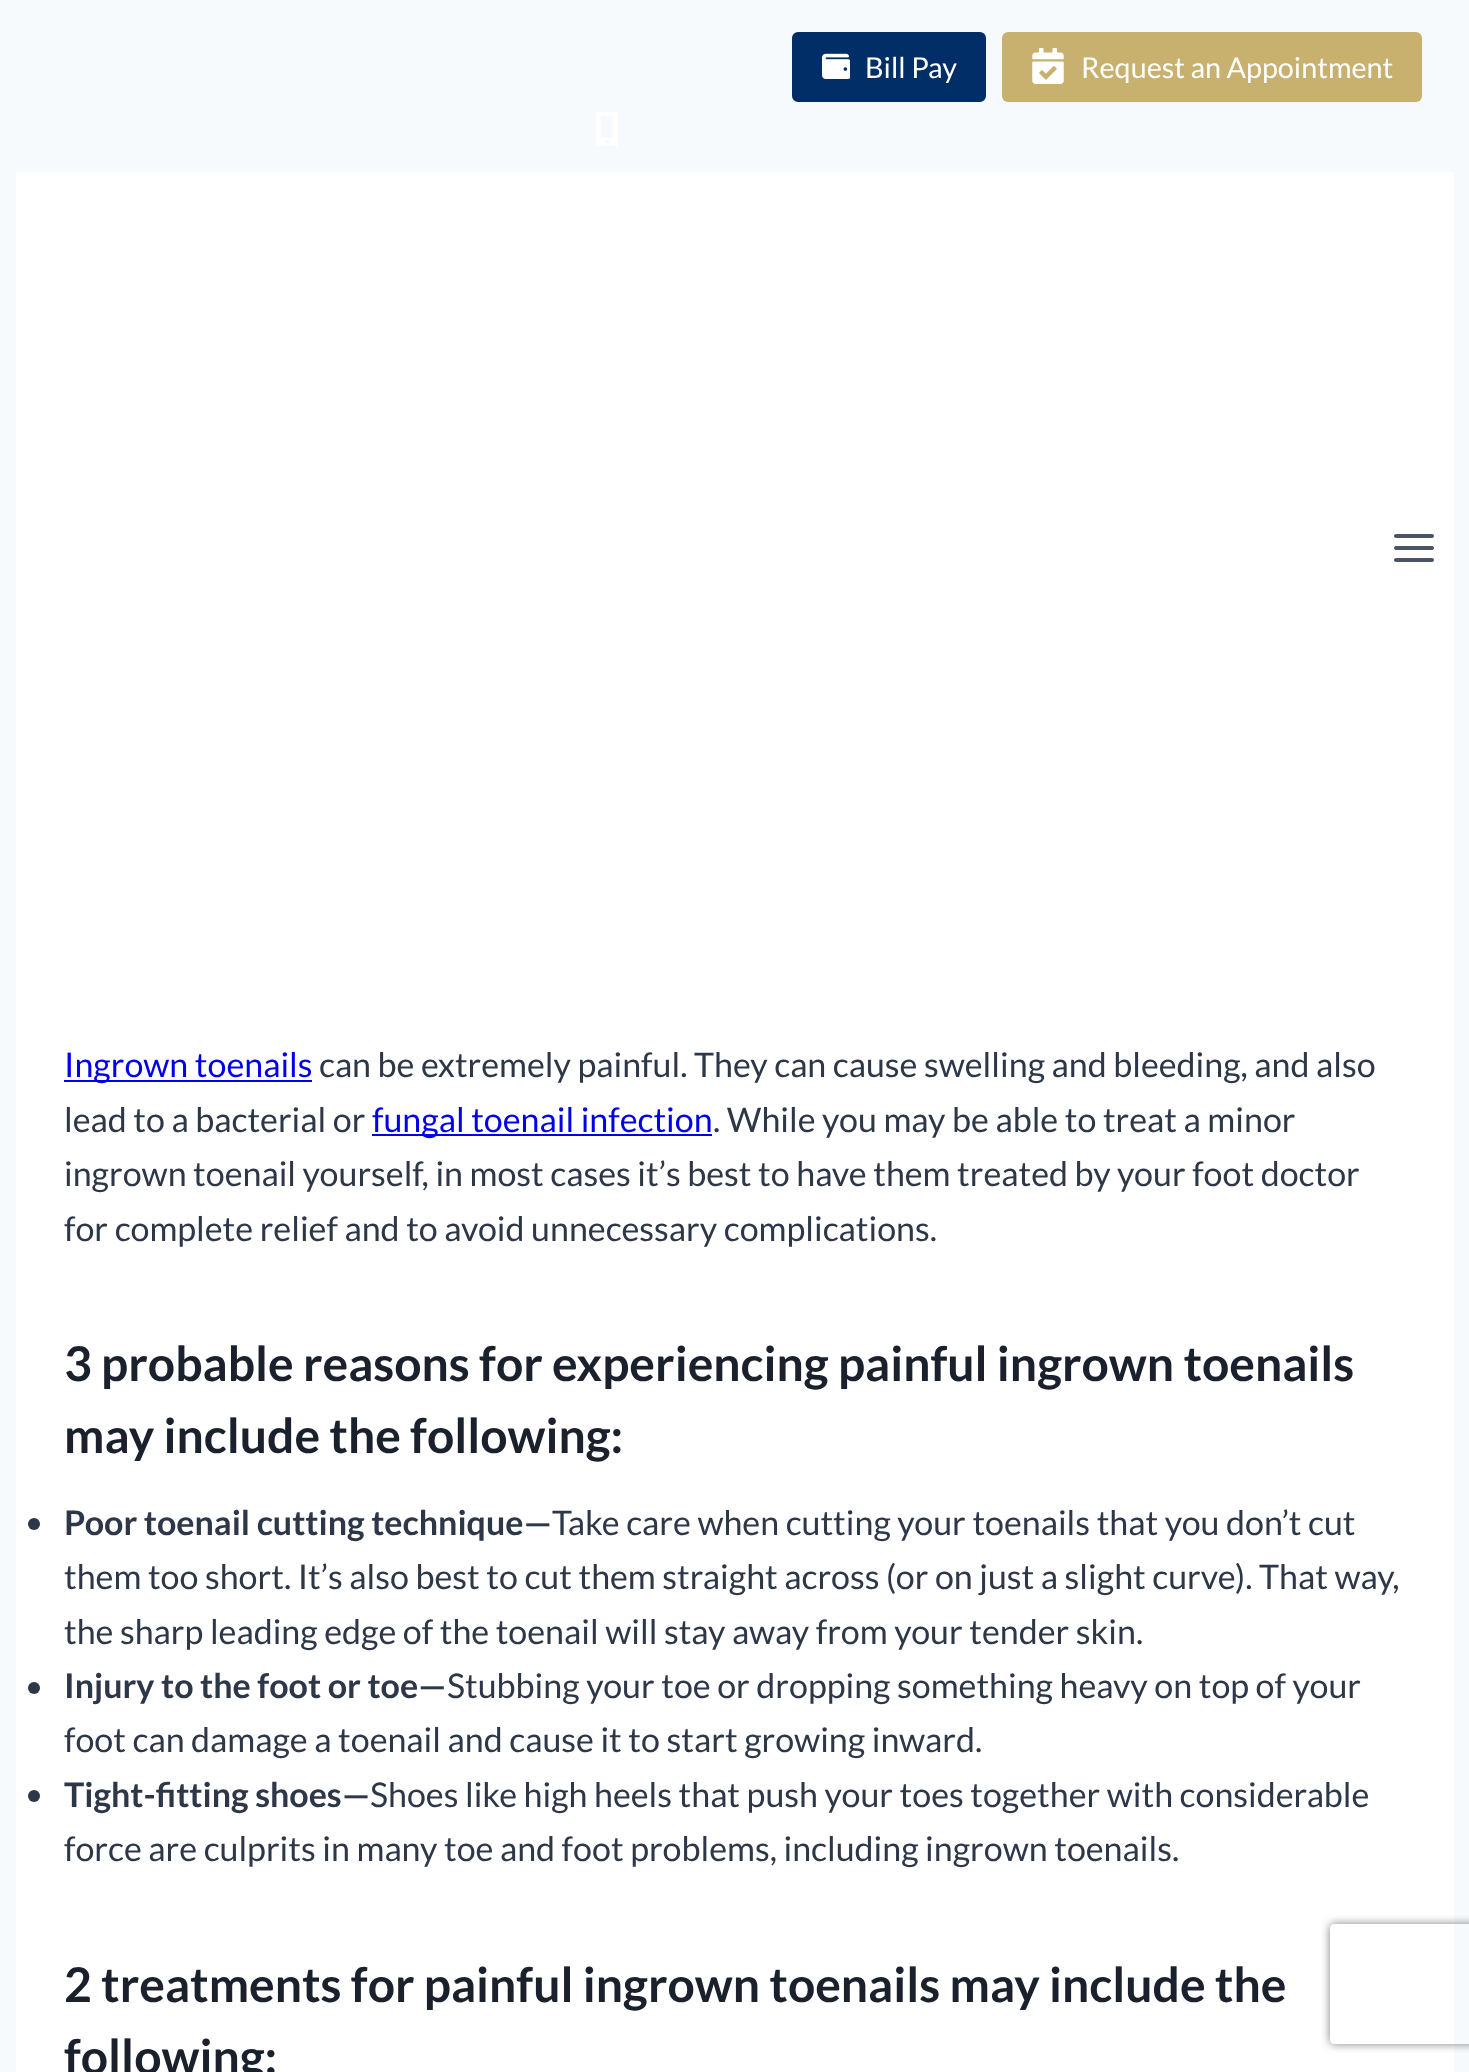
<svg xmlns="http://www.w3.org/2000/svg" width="1469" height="2072">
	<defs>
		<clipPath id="clip1"><path d="M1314 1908H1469V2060H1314ZM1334 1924H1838C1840 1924 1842 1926 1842 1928V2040C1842 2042 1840 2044 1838 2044H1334C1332 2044 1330 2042 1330 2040V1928C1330 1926 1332 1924 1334 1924Z" clip-rule="evenodd" /></clipPath>
	</defs>
	<rect width="100%" height="100%" fill="#F7FAFC" />
	<rect x="793" y="33" width="192" height="68" rx="5" fill="#012E66" stroke="#012E66" stroke-width="2" />
	<image x="822" y="53" width="28" height="26" href="assets/img1.png" />
	<text x="865" y="78" font-family="Lato" font-size="28.75" fill="#FFFFFF">Bill Pay</text>
	<rect x="1002" y="32" width="420" height="70" rx="6" fill="#C8B16F" />
	<image x="1032" y="48" width="32" height="36" href="assets/img2.png" />
	<text x="1081" y="78" font-family="Lato" font-size="28.75" fill="#FFFFFF">Request an Appointment</text>
	<image x="596" y="112" width="22" height="34" href="assets/img3.png" />
	<rect x="16" y="172" width="1438" height="1900" fill="#FFFFFF" />
	<image x="1394" y="534" width="40" height="28" href="assets/img4.png" />
	<rect x="64" y="1080" width="248" height="2" fill="#0000EE" />
	<text x="64" y="1077" font-family="Lato" font-size="34" fill="#0000EE">Ingrown toenails</text>
	<g font-family="Lato" font-size="34" fill="#2D3748">
		<text x="319" y="1077">can be extremely painful. They can cause swelling and bleeding, and also</text>
		<text x="64" y="1132">lead to a bacterial or</text>
	</g>
	<rect x="372" y="1134" width="340" height="2" fill="#0000EE" />
	<text x="372" y="1132" font-family="Lato" font-size="34" fill="#0000EE">fungal toenail infection</text>
	<g font-family="Lato" font-size="34" fill="#2D3748">
		<text x="713" y="1132">. While you may be able to treat a minor</text>
		<text x="64" y="1186">ingrown toenail yourself, in most cases it’s best to have them treated by your foot doctor</text>
		<text x="64" y="1241">for complete relief and to avoid unnecessary complications.</text>
	</g>
	<g font-family="Lato" font-size="48" font-weight="700" fill="#1A202C">
		<text x="64" y="1381">3 probable reasons for experiencing painful ingrown toenails</text>
		<text x="64" y="1453">may include the following:</text>
	</g>
	<circle cx="34" cy="1524" r="6" fill="#2D3748" />
	<text x="64" y="1535" font-family="Lato" font-size="34" font-weight="700" fill="#2D3748">Poor toenail cutting technique—</text>
	<g font-family="Lato" font-size="34" fill="#2D3748">
		<text x="552" y="1535">Take care when cutting your toenails that you don’t cut</text>
		<text x="64" y="1589">them too short. It’s also best to cut them straight across (or on just a slight curve). That way,</text>
		<text x="64" y="1644">the sharp leading edge of the toenail will stay away from your tender skin.</text>
	</g>
	<circle cx="34" cy="1688" r="6" fill="#2D3748" />
	<text x="64" y="1698" font-family="Lato" font-size="34" font-weight="700" fill="#2D3748">Injury to the foot or toe—</text>
	<g font-family="Lato" font-size="34" fill="#2D3748">
		<text x="447" y="1698">Stubbing your toe or dropping something heavy on top of your</text>
		<text x="64" y="1752">foot can damage a toenail and cause it to start growing inward.</text>
	</g>
	<circle cx="34" cy="1796" r="6" fill="#2D3748" />
	<text x="64" y="1807" font-family="Lato" font-size="34" font-weight="700" fill="#2D3748">Tight-fitting shoes—</text>
	<g font-family="Lato" font-size="34" fill="#2D3748">
		<text x="370" y="1807">Shoes like high heels that push your toes together with considerable</text>
		<text x="64" y="1861">force are culprits in many toe and foot problems, including ingrown toenails.</text>
	</g>
	<g font-family="Lato" font-size="48" font-weight="700" fill="#1A202C">
		<text x="64" y="2002">2 treatments for painful ingrown toenails may include the</text>
		<text x="64" y="2074">following:</text>
	</g>
	<g clip-path="url(#clip1)">
		<rect x="1330" y="1924" width="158" height="120" rx="4" fill="#808080" filter="blur(5px)" />
	</g>
</svg>
